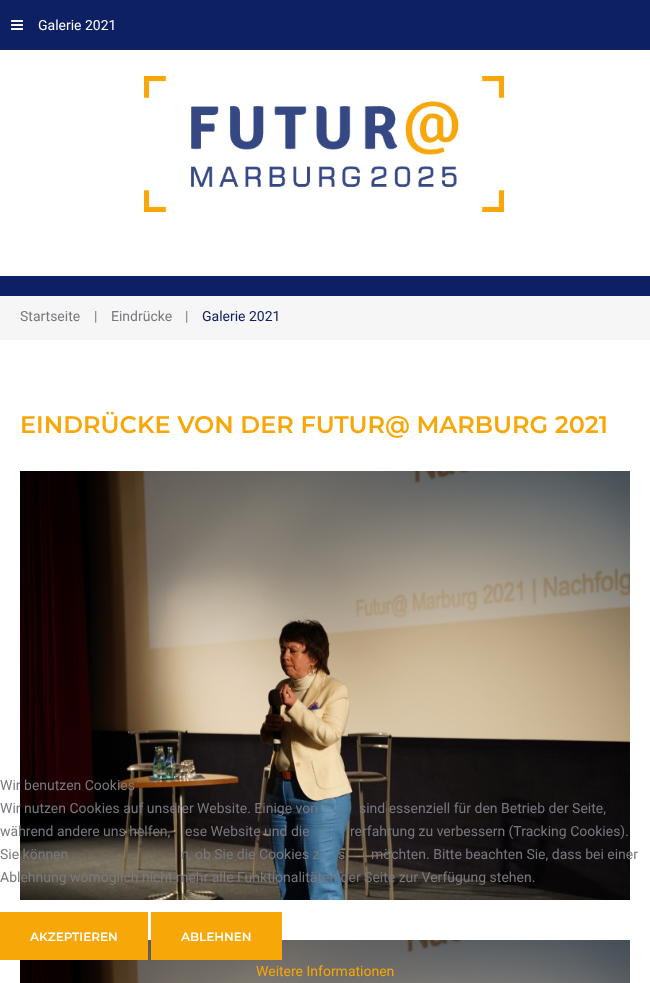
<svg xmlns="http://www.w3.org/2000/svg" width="650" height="983">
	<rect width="100%" height="100%" fill="#FFFFFF" />
	<rect x="0" y="276" width="650" height="20" fill="#0D2064" />
	<rect x="0" y="0" width="650" height="50" fill="#0D2064" />
	<image x="11" y="20" width="12" height="10" href="assets/img1.png" />
	<text x="38" y="30" font-family="Roboto" font-size="14" fill="#FFFFFF">Galerie 2021</text>
	<rect x="0" y="296" width="650" height="44" fill="#F6F6F6" />
	<g font-family="Roboto" font-size="14" fill="#79787F">
		<text x="20" y="321">Startseite</text>
		<text x="94" y="321">|</text>
		<text x="111" y="321">Eindrücke</text>
		<text x="185" y="321">|</text>
	</g>
	<text x="202" y="321" font-family="Roboto" font-size="14" fill="#0D2064">Galerie 2021</text>
	<image x="144" y="76" width="360" height="136" href="assets/img2.png" />
	<text x="20" y="433" font-family="Montserrat" font-size="24" font-weight="600" fill="#F7A707">EINDRÜCKE VON DER FUTUR@ MARBURG 2021</text>
	<image x="20" y="471" width="610" height="429" href="assets/img3.png" />
	<image x="20" y="940" width="610" height="43" href="assets/img4.png" />
	<g font-family="Roboto" font-size="14" fill="#79787F">
		<text x="0" y="790">Wir benutzen Cookies</text>
		<text x="0" y="813">Wir nutzen Cookies auf unserer Website. Einige von</text>
		<text x="359" y="813">sind essenziell für den Betrieb der Seite,</text>
		<text x="0" y="836">während andere uns helfen,</text>
		<text x="185" y="836">ese Website und die</text>
		<text x="350" y="836">rerfahrung zu verbessern (Tracking Cookies).</text>
		<text x="0" y="859">Sie können</text>
		<text x="181" y="859">n, ob Sie die Cookies z</text>
		<text x="338" y="859">s</text>
		<text x="371" y="859">möchten. Bitte beachten Sie, dass bei einer</text>
		<text x="0" y="882">Ablehnung womöglich nicht mehr alle Funktionalitäten der Seite zur Verfügung stehen.</text>
	</g>
	<rect x="0" y="912" width="148" height="48" fill="#F7A707" />
	<text x="30" y="941" font-family="Montserrat" font-size="12" font-weight="600" fill="#FFFFFF">AKZEPTIEREN</text>
	<rect x="151" y="912" width="131" height="48" fill="#F7A707" />
	<text x="181" y="941" font-family="Montserrat" font-size="12" font-weight="600" fill="#FFFFFF">ABLEHNEN</text>
	<text x="256" y="976" font-family="Roboto" font-size="14" fill="#F7A707">Weitere Informationen</text>
</svg>
